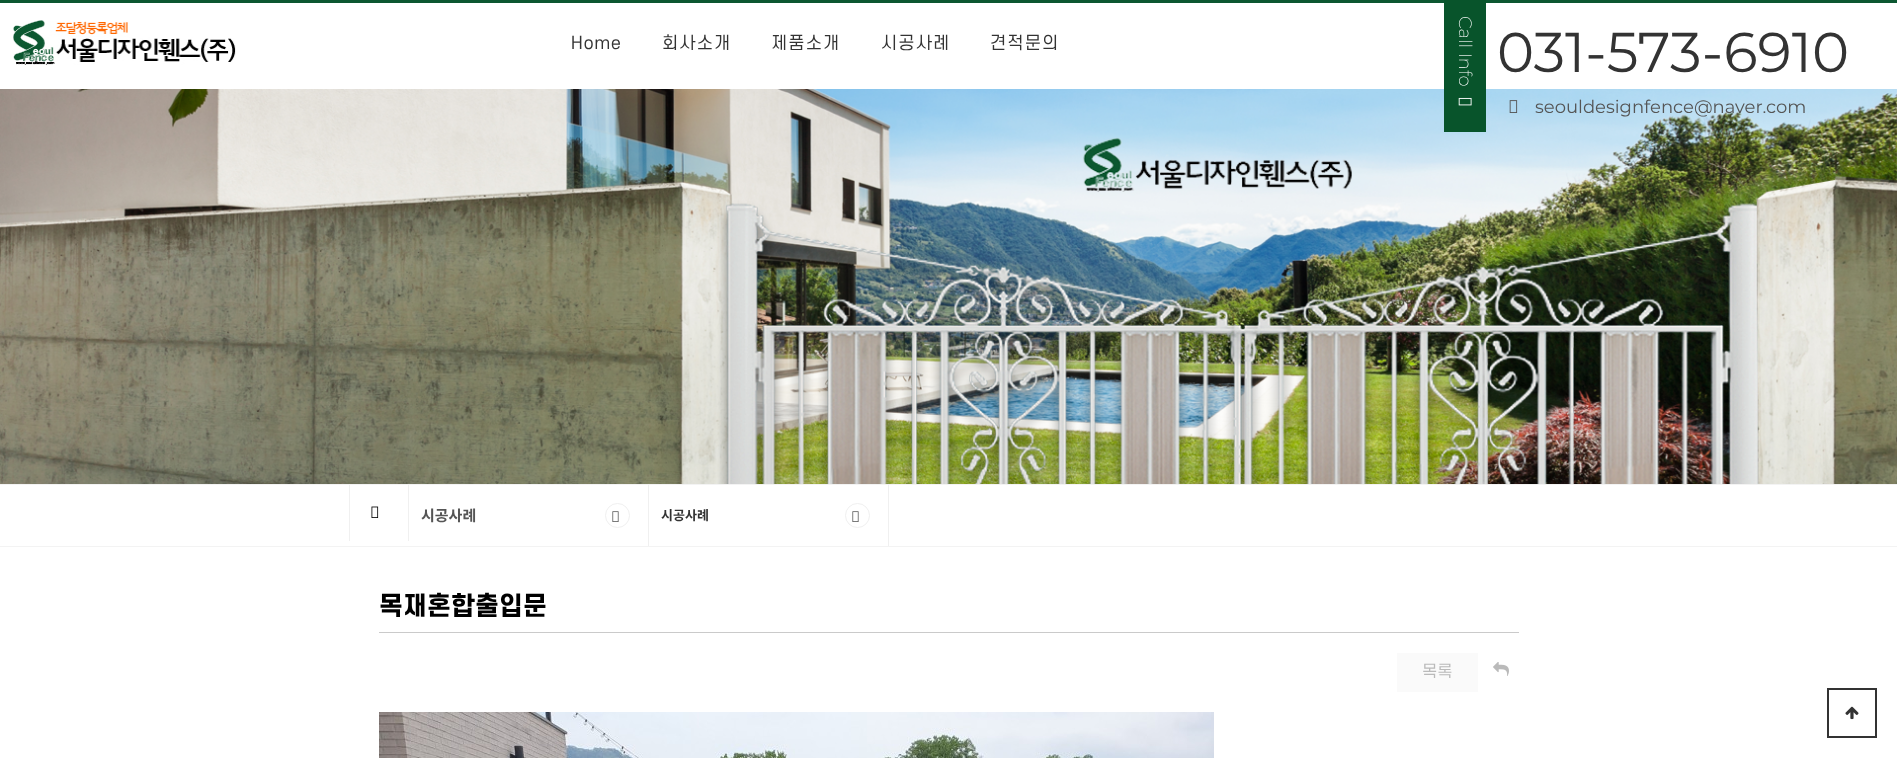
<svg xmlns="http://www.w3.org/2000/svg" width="1897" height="758">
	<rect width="100%" height="100%" fill="#FFFFFF" />
	<rect x="0" y="0" width="1897" height="3" fill="#0C5731" />
	<image x="13" y="20" width="223" height="45" href="assets/img1.png" />
	<g font-family="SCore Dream" font-size="17" letter-spacing="1" fill="#333333">
		<text x="571" y="49">Home</text>
		<text x="662" y="49">회사소개</text>
		<text x="771" y="49">제품소개</text>
		<text x="881" y="49">시공사례</text>
		<text x="990" y="49">견적문의</text>
	</g>
	<image x="0" y="89" width="1897" height="395" href="assets/img4.png" />
	<rect x="1444" y="0" width="42" height="132" fill="#08542B" />
	<text x="1459" y="16" transform="rotate(90 1459 16)" font-family="Montserrat" font-size="18" font-weight="200" fill="#FFFFFF">Call Info</text>
	<image x="1458" y="97" width="14" height="9" href="assets/img2.png" />
	<text x="1497" y="72" font-family="Montserrat" font-size="56" fill="#333333">031-573-6910</text>
	<image x="1509" y="100" width="9" height="13" href="assets/img3.png" />
	<text x="1535" y="113" font-family="Montserrat" font-size="18" fill="#555555">seouldesignfence@naver.com</text>
	<rect x="0" y="484" width="1897" height="1" fill="#F3F3F3" />
	<rect x="0" y="546" width="1897" height="1" fill="#F3F3F3" />
	<rect x="408" y="485" width="1" height="56" fill="#F0F0F0" />
	<rect x="349" y="485" width="1" height="56" fill="#F0F0F0" />
	<image x="371" y="506" width="8" height="12" href="assets/img5.png" />
	<rect x="648" y="485" width="1" height="61" fill="#F0F0F0" />
	<text x="421" y="521" font-family="Noto Sans KR" font-size="15" font-weight="700" fill="#555555">시공사례</text>
	<circle cx="617.5" cy="515.5" r="12" fill="none" stroke="#F0F0F0" />
	<image x="612" y="511" width="7" height="11" href="assets/img6.png" />
	<rect x="888" y="485" width="1" height="61" fill="#F0F0F0" />
	<text x="661" y="520" font-family="Noto Sans KR" font-size="13" font-weight="700" fill="#333333">시공사례</text>
	<circle cx="857.5" cy="515.5" r="12" fill="none" stroke="#F0F0F0" />
	<image x="852" y="511" width="7" height="11" href="assets/img6.png" />
	<rect x="379" y="632" width="1140" height="1" fill="#CACACA" />
	<text x="379" y="615" font-family="SCore Dream" font-size="25" font-weight="800" fill="#000000">목재혼합출입문</text>
	<rect x="1397" y="653" width="81" height="39" fill="#FAFAFA" />
	<text x="1422" y="677" font-family="SCore Dream" font-size="16" fill="#BABABA">목록</text>
	<image x="1493" y="662" width="16" height="14" href="assets/img7.png" />
	<image x="379" y="712" width="835" height="46" href="assets/img8.png" />
	<rect x="1828" y="689" width="48" height="48" fill="none" stroke="#333333" stroke-width="2" />
	<image x="1845" y="706" width="14" height="14" href="assets/img9.png" />
</svg>
